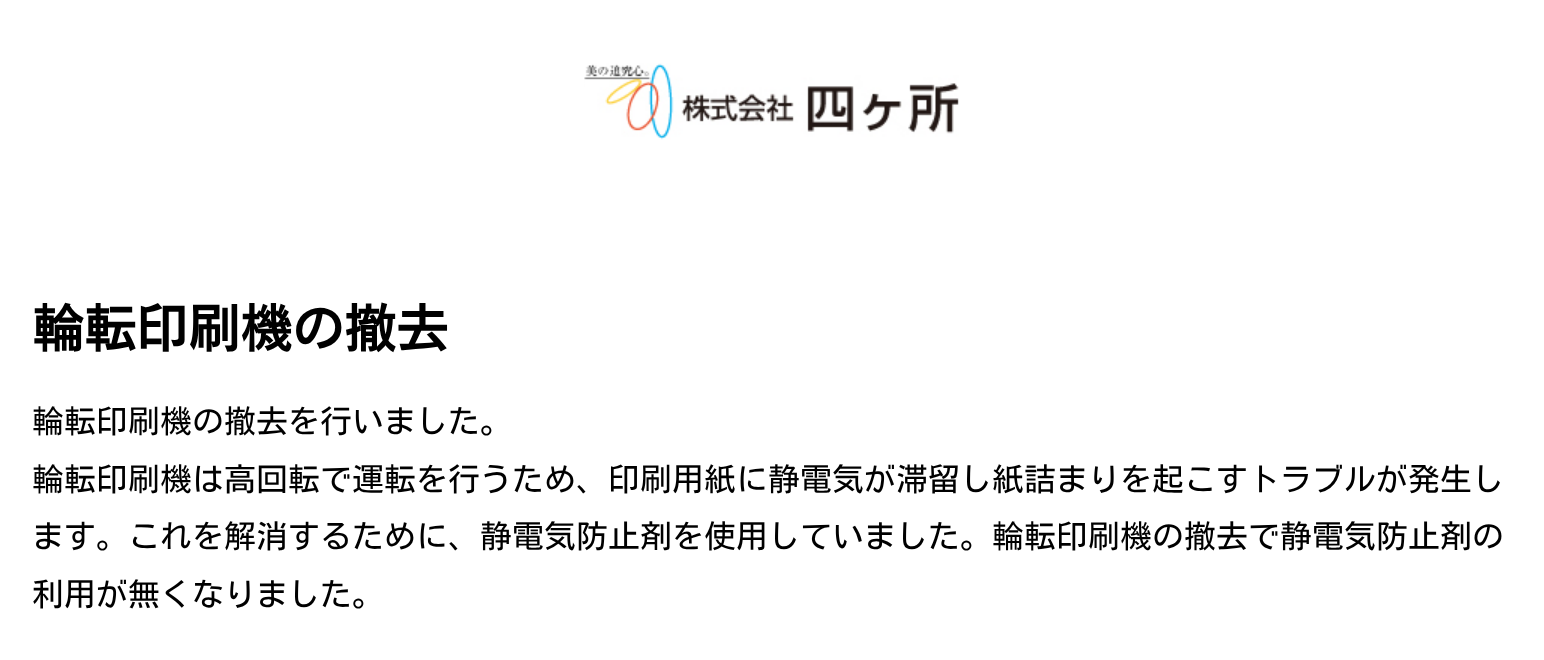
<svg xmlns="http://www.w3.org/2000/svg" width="1544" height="660">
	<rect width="100%" height="100%" fill="#FFFFFF" />
	<image x="584" y="63" width="375" height="77" href="assets/img1.png" />
	<text x="32" y="348" font-family="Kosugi" font-size="52" font-weight="700" fill="#000000">輪転印刷機の撤去</text>
	<g font-family="Kosugi" font-size="32" fill="#000000">
		<text x="32" y="433">輪転印刷機の撤去を行いました。</text>
		<text x="32" y="491">輪転印刷機は高回転で運転を行うため、印刷用紙に静電気が滞留し紙詰まりを起こすトラブルが発生し</text>
		<text x="32" y="548">ます。これを解消するために、静電気防止剤を使用していました。輪転印刷機の撤去で静電気防止剤の</text>
		<text x="32" y="606">利用が無くなりました。</text>
	</g>
</svg>
